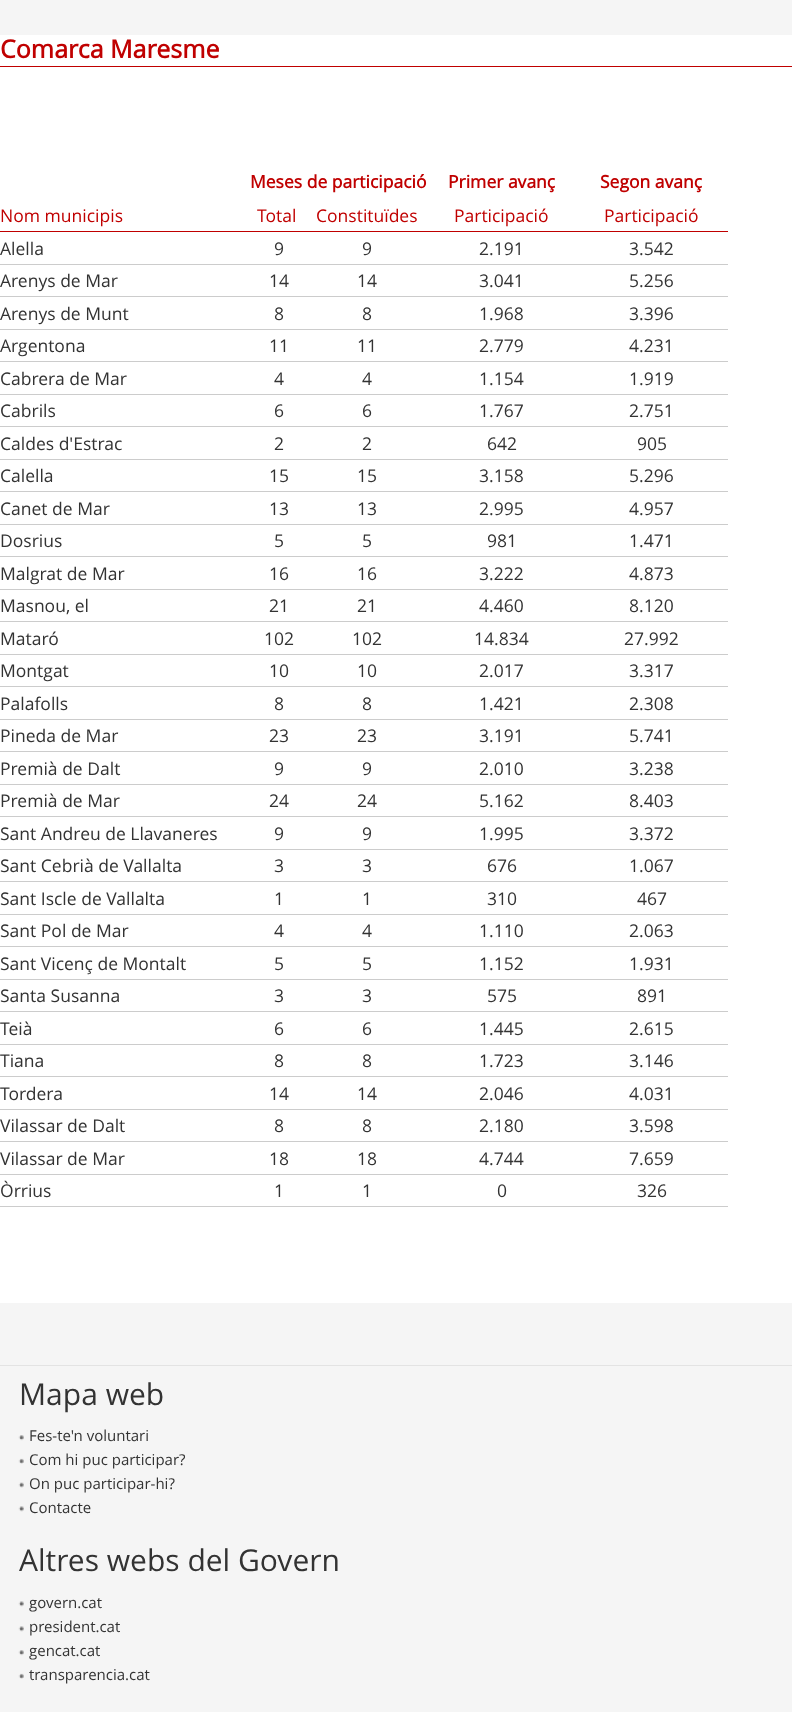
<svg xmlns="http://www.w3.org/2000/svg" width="792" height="1712">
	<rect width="100%" height="100%" fill="#F5F5F5" />
	<rect x="0" y="35" width="792" height="1268" fill="#FFFFFF" />
	<text x="0" y="58" font-family="Open Sans" font-size="25" font-weight="700" fill="#C00000">Comarca Maresme</text>
	<rect x="0" y="66" width="792" height="1" fill="#C00000" />
	<g font-family="Open Sans" font-size="17.5" font-weight="700" fill="#C00000">
		<text x="250" y="188">Meses de participació</text>
		<text x="448" y="188">Primer avanç</text>
		<text x="600" y="188">Segon avanç</text>
	</g>
	<rect x="0" y="231" width="728" height="1" fill="#C00000" />
	<g font-family="Open Sans" font-size="17.5" fill="#C00000">
		<text x="0" y="222">Nom municipis</text>
		<text x="257" y="222">Total</text>
		<text x="316" y="222">Constituïdes</text>
		<text x="454" y="222">Participació</text>
		<text x="604" y="222">Participació</text>
	</g>
	<rect x="0" y="264" width="728" height="1" fill="#CCCCCC" />
	<g font-family="Open Sans" font-size="17.5" fill="#333333">
		<text x="0" y="255">Alella</text>
		<text x="274" y="255">9</text>
		<text x="362" y="255">9</text>
		<text x="479" y="255">2.191</text>
		<text x="629" y="255">3.542</text>
	</g>
	<rect x="0" y="296" width="728" height="1" fill="#CCCCCC" />
	<g font-family="Open Sans" font-size="17.5" fill="#333333">
		<text x="0" y="287">Arenys de Mar</text>
		<text x="269" y="287">14</text>
		<text x="357" y="287">14</text>
		<text x="479" y="287">3.041</text>
		<text x="629" y="287">5.256</text>
	</g>
	<rect x="0" y="329" width="728" height="1" fill="#CCCCCC" />
	<g font-family="Open Sans" font-size="17.5" fill="#333333">
		<text x="0" y="320">Arenys de Munt</text>
		<text x="274" y="320">8</text>
		<text x="362" y="320">8</text>
		<text x="479" y="320">1.968</text>
		<text x="629" y="320">3.396</text>
	</g>
	<rect x="0" y="361" width="728" height="1" fill="#CCCCCC" />
	<g font-family="Open Sans" font-size="17.5" fill="#333333">
		<text x="0" y="352">Argentona</text>
		<text x="269" y="352">11</text>
		<text x="357" y="352">11</text>
		<text x="479" y="352">2.779</text>
		<text x="629" y="352">4.231</text>
	</g>
	<rect x="0" y="394" width="728" height="1" fill="#CCCCCC" />
	<g font-family="Open Sans" font-size="17.5" fill="#333333">
		<text x="0" y="385">Cabrera de Mar</text>
		<text x="274" y="385">4</text>
		<text x="362" y="385">4</text>
		<text x="479" y="385">1.154</text>
		<text x="629" y="385">1.919</text>
	</g>
	<rect x="0" y="426" width="728" height="1" fill="#CCCCCC" />
	<g font-family="Open Sans" font-size="17.5" fill="#333333">
		<text x="0" y="417">Cabrils</text>
		<text x="274" y="417">6</text>
		<text x="362" y="417">6</text>
		<text x="479" y="417">1.767</text>
		<text x="629" y="417">2.751</text>
	</g>
	<rect x="0" y="459" width="728" height="1" fill="#CCCCCC" />
	<g font-family="Open Sans" font-size="17.5" fill="#333333">
		<text x="0" y="450">Caldes d'Estrac</text>
		<text x="274" y="450">2</text>
		<text x="362" y="450">2</text>
		<text x="487" y="450">642</text>
		<text x="637" y="450">905</text>
	</g>
	<rect x="0" y="491" width="728" height="1" fill="#CCCCCC" />
	<g font-family="Open Sans" font-size="17.5" fill="#333333">
		<text x="0" y="482">Calella</text>
		<text x="269" y="482">15</text>
		<text x="357" y="482">15</text>
		<text x="479" y="482">3.158</text>
		<text x="629" y="482">5.296</text>
	</g>
	<rect x="0" y="524" width="728" height="1" fill="#CCCCCC" />
	<g font-family="Open Sans" font-size="17.5" fill="#333333">
		<text x="0" y="515">Canet de Mar</text>
		<text x="269" y="515">13</text>
		<text x="357" y="515">13</text>
		<text x="479" y="515">2.995</text>
		<text x="629" y="515">4.957</text>
	</g>
	<rect x="0" y="556" width="728" height="1" fill="#CCCCCC" />
	<g font-family="Open Sans" font-size="17.5" fill="#333333">
		<text x="0" y="547">Dosrius</text>
		<text x="274" y="547">5</text>
		<text x="362" y="547">5</text>
		<text x="487" y="547">981</text>
		<text x="629" y="547">1.471</text>
	</g>
	<rect x="0" y="589" width="728" height="1" fill="#CCCCCC" />
	<g font-family="Open Sans" font-size="17.5" fill="#333333">
		<text x="0" y="580">Malgrat de Mar</text>
		<text x="269" y="580">16</text>
		<text x="357" y="580">16</text>
		<text x="479" y="580">3.222</text>
		<text x="629" y="580">4.873</text>
	</g>
	<rect x="0" y="621" width="728" height="1" fill="#CCCCCC" />
	<g font-family="Open Sans" font-size="17.5" fill="#333333">
		<text x="0" y="612">Masnou, el</text>
		<text x="269" y="612">21</text>
		<text x="357" y="612">21</text>
		<text x="479" y="612">4.460</text>
		<text x="629" y="612">8.120</text>
	</g>
	<rect x="0" y="654" width="728" height="1" fill="#CCCCCC" />
	<g font-family="Open Sans" font-size="17.5" fill="#333333">
		<text x="0" y="645">Mataró</text>
		<text x="264" y="645">102</text>
		<text x="352" y="645">102</text>
		<text x="474" y="645">14.834</text>
		<text x="624" y="645">27.992</text>
	</g>
	<rect x="0" y="686" width="728" height="1" fill="#CCCCCC" />
	<g font-family="Open Sans" font-size="17.5" fill="#333333">
		<text x="0" y="677">Montgat</text>
		<text x="269" y="677">10</text>
		<text x="357" y="677">10</text>
		<text x="479" y="677">2.017</text>
		<text x="629" y="677">3.317</text>
	</g>
	<rect x="0" y="719" width="728" height="1" fill="#CCCCCC" />
	<g font-family="Open Sans" font-size="17.5" fill="#333333">
		<text x="0" y="710">Palafolls</text>
		<text x="274" y="710">8</text>
		<text x="362" y="710">8</text>
		<text x="479" y="710">1.421</text>
		<text x="629" y="710">2.308</text>
	</g>
	<rect x="0" y="751" width="728" height="1" fill="#CCCCCC" />
	<g font-family="Open Sans" font-size="17.5" fill="#333333">
		<text x="0" y="742">Pineda de Mar</text>
		<text x="269" y="742">23</text>
		<text x="357" y="742">23</text>
		<text x="479" y="742">3.191</text>
		<text x="629" y="742">5.741</text>
	</g>
	<rect x="0" y="784" width="728" height="1" fill="#CCCCCC" />
	<g font-family="Open Sans" font-size="17.5" fill="#333333">
		<text x="0" y="775">Premià de Dalt</text>
		<text x="274" y="775">9</text>
		<text x="362" y="775">9</text>
		<text x="479" y="775">2.010</text>
		<text x="629" y="775">3.238</text>
	</g>
	<rect x="0" y="816" width="728" height="1" fill="#CCCCCC" />
	<g font-family="Open Sans" font-size="17.5" fill="#333333">
		<text x="0" y="807">Premià de Mar</text>
		<text x="269" y="807">24</text>
		<text x="357" y="807">24</text>
		<text x="479" y="807">5.162</text>
		<text x="629" y="807">8.403</text>
	</g>
	<rect x="0" y="849" width="728" height="1" fill="#CCCCCC" />
	<g font-family="Open Sans" font-size="17.5" fill="#333333">
		<text x="0" y="840">Sant Andreu de Llavaneres</text>
		<text x="274" y="840">9</text>
		<text x="362" y="840">9</text>
		<text x="479" y="840">1.995</text>
		<text x="629" y="840">3.372</text>
	</g>
	<rect x="0" y="881" width="728" height="1" fill="#CCCCCC" />
	<g font-family="Open Sans" font-size="17.5" fill="#333333">
		<text x="0" y="872">Sant Cebrià de Vallalta</text>
		<text x="274" y="872">3</text>
		<text x="362" y="872">3</text>
		<text x="487" y="872">676</text>
		<text x="629" y="872">1.067</text>
	</g>
	<rect x="0" y="914" width="728" height="1" fill="#CCCCCC" />
	<g font-family="Open Sans" font-size="17.5" fill="#333333">
		<text x="0" y="905">Sant Iscle de Vallalta</text>
		<text x="274" y="905">1</text>
		<text x="362" y="905">1</text>
		<text x="487" y="905">310</text>
		<text x="637" y="905">467</text>
	</g>
	<rect x="0" y="946" width="728" height="1" fill="#CCCCCC" />
	<g font-family="Open Sans" font-size="17.5" fill="#333333">
		<text x="0" y="937">Sant Pol de Mar</text>
		<text x="274" y="937">4</text>
		<text x="362" y="937">4</text>
		<text x="479" y="937">1.110</text>
		<text x="629" y="937">2.063</text>
	</g>
	<rect x="0" y="979" width="728" height="1" fill="#CCCCCC" />
	<g font-family="Open Sans" font-size="17.5" fill="#333333">
		<text x="0" y="970">Sant Vicenç de Montalt</text>
		<text x="274" y="970">5</text>
		<text x="362" y="970">5</text>
		<text x="479" y="970">1.152</text>
		<text x="629" y="970">1.931</text>
	</g>
	<rect x="0" y="1011" width="728" height="1" fill="#CCCCCC" />
	<g font-family="Open Sans" font-size="17.5" fill="#333333">
		<text x="0" y="1002">Santa Susanna</text>
		<text x="274" y="1002">3</text>
		<text x="362" y="1002">3</text>
		<text x="487" y="1002">575</text>
		<text x="637" y="1002">891</text>
	</g>
	<rect x="0" y="1044" width="728" height="1" fill="#CCCCCC" />
	<g font-family="Open Sans" font-size="17.5" fill="#333333">
		<text x="0" y="1035">Teià</text>
		<text x="274" y="1035">6</text>
		<text x="362" y="1035">6</text>
		<text x="479" y="1035">1.445</text>
		<text x="629" y="1035">2.615</text>
	</g>
	<rect x="0" y="1076" width="728" height="1" fill="#CCCCCC" />
	<g font-family="Open Sans" font-size="17.5" fill="#333333">
		<text x="0" y="1067">Tiana</text>
		<text x="274" y="1067">8</text>
		<text x="362" y="1067">8</text>
		<text x="479" y="1067">1.723</text>
		<text x="629" y="1067">3.146</text>
	</g>
	<rect x="0" y="1109" width="728" height="1" fill="#CCCCCC" />
	<g font-family="Open Sans" font-size="17.5" fill="#333333">
		<text x="0" y="1100">Tordera</text>
		<text x="269" y="1100">14</text>
		<text x="357" y="1100">14</text>
		<text x="479" y="1100">2.046</text>
		<text x="629" y="1100">4.031</text>
	</g>
	<rect x="0" y="1141" width="728" height="1" fill="#CCCCCC" />
	<g font-family="Open Sans" font-size="17.5" fill="#333333">
		<text x="0" y="1132">Vilassar de Dalt</text>
		<text x="274" y="1132">8</text>
		<text x="362" y="1132">8</text>
		<text x="479" y="1132">2.180</text>
		<text x="629" y="1132">3.598</text>
	</g>
	<rect x="0" y="1174" width="728" height="1" fill="#CCCCCC" />
	<g font-family="Open Sans" font-size="17.5" fill="#333333">
		<text x="0" y="1165">Vilassar de Mar</text>
		<text x="269" y="1165">18</text>
		<text x="357" y="1165">18</text>
		<text x="479" y="1165">4.744</text>
		<text x="629" y="1165">7.659</text>
	</g>
	<rect x="0" y="1206" width="728" height="1" fill="#CCCCCC" />
	<g font-family="Open Sans" font-size="17.5" fill="#333333">
		<text x="0" y="1197">Òrrius</text>
		<text x="274" y="1197">1</text>
		<text x="362" y="1197">1</text>
		<text x="497" y="1197">0</text>
		<text x="637" y="1197">326</text>
	</g>
	<rect x="0" y="1365" width="792" height="1" fill="#E3E3E3" />
	<text x="19" y="1405" font-family="Open Sans" font-size="30" fill="#333333">Mapa web</text>
	<image x="18" y="1435" width="6" height="6" href="assets/img1.png" />
	<text x="29" y="1441" font-family="Open Sans" font-size="15" fill="#333333">Fes-te'n voluntari</text>
	<image x="18" y="1458" width="6" height="6" href="assets/img2.png" />
	<text x="29" y="1465" font-family="Open Sans" font-size="15" fill="#333333">Com hi puc participar?</text>
	<image x="18" y="1482" width="6" height="6" href="assets/img3.png" />
	<text x="29" y="1489" font-family="Open Sans" font-size="15" fill="#333333">On puc participar-hi?</text>
	<image x="18" y="1506" width="6" height="6" href="assets/img4.png" />
	<text x="29" y="1513" font-family="Open Sans" font-size="15" fill="#333333">Contacte</text>
	<text x="19" y="1571" font-family="Open Sans" font-size="30" fill="#333333">Altres webs del Govern</text>
	<image x="18" y="1601" width="6" height="6" href="assets/img4.png" />
	<text x="29" y="1608" font-family="Open Sans" font-size="15" fill="#333333">govern.cat</text>
	<image x="18" y="1626" width="6" height="6" href="assets/img4.png" />
	<text x="29" y="1632" font-family="Open Sans" font-size="15" fill="#333333">president.cat</text>
	<image x="18" y="1650" width="6" height="6" href="assets/img1.png" />
	<text x="29" y="1656" font-family="Open Sans" font-size="15" fill="#333333">gencat.cat</text>
	<image x="18" y="1673" width="6" height="6" href="assets/img2.png" />
	<text x="29" y="1680" font-family="Open Sans" font-size="15" fill="#333333">transparencia.cat</text>
</svg>
